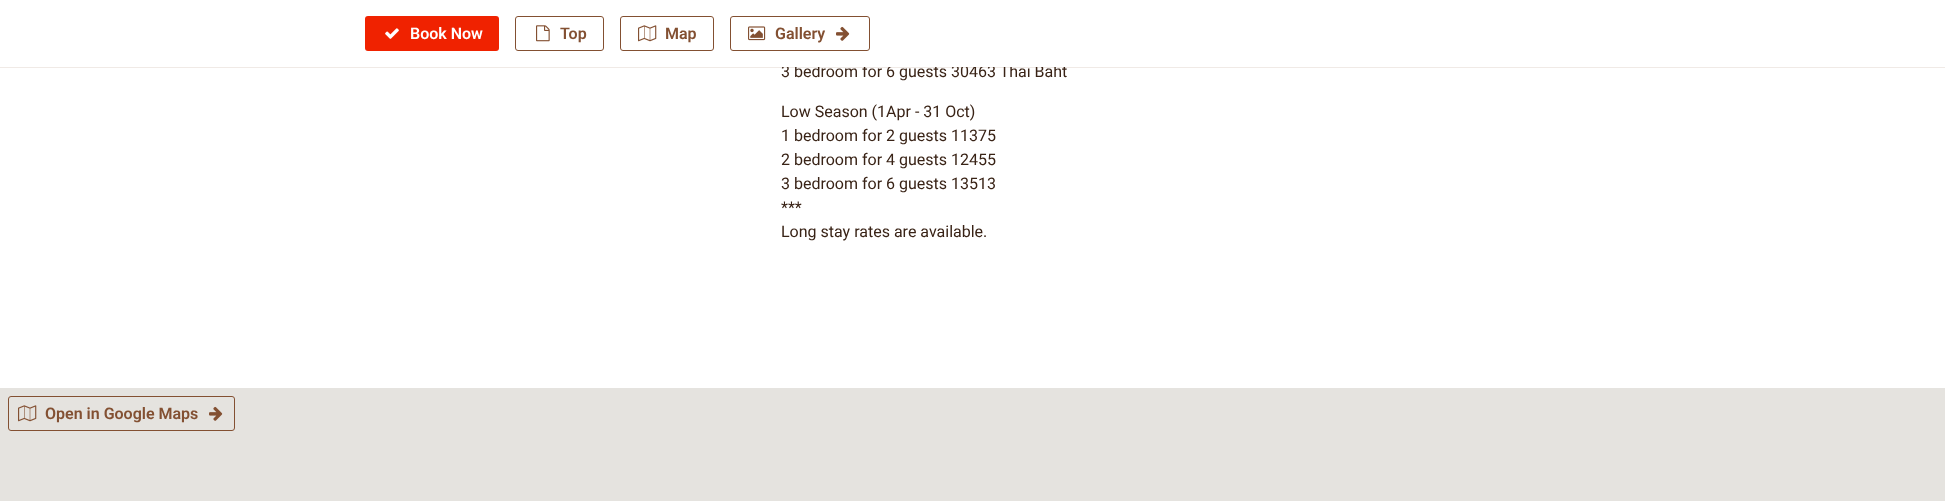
<svg xmlns="http://www.w3.org/2000/svg" width="1945" height="501">
	<rect width="100%" height="100%" fill="#FFFFFF" />
	<rect x="0" y="1" width="1945" height="67" fill="#835032" fill-opacity="0.12" filter="blur(0.5px)" />
	<text x="781" y="77" font-family="Roboto" font-size="16" fill="#392316">3 bedroom for 6 guests 30463 Thai Baht</text>
	<rect x="0" y="1" width="1945" height="66" fill="#FFFFFF" />
	<rect x="365" y="16" width="134" height="35" rx="3" fill="#F02200" />
	<image x="385" y="28" width="14" height="11" href="assets/img1.png" />
	<text x="410" y="39" font-family="Roboto" font-size="16" font-weight="600" fill="#FFFFFF">Book Now</text>
	<rect x="515.5" y="16.5" width="88" height="34" rx="2.5" fill="none" stroke="#835032" />
	<image x="536" y="25" width="14" height="17" href="assets/img2.png" />
	<text x="560" y="39" font-family="Roboto" font-size="16" font-weight="600" fill="#835032">Top</text>
	<rect x="620.5" y="16.5" width="93" height="34" rx="2.5" fill="none" stroke="#835032" />
	<image x="638" y="25" width="19" height="17" href="assets/img3.png" />
	<text x="665" y="39" font-family="Roboto" font-size="16" font-weight="600" fill="#835032">Map</text>
	<rect x="730.5" y="16.5" width="139" height="34" rx="2.5" fill="none" stroke="#835032" />
	<image x="748" y="26" width="18" height="15" href="assets/img4.png" />
	<text x="775" y="39" font-family="Roboto" font-size="16" font-weight="600" fill="#835032">Gallery</text>
	<image x="836" y="26" width="14" height="15" href="assets/img5.png" />
	<g font-family="Roboto" font-size="16" fill="#392316">
		<text x="781" y="117">Low Season (1Apr - 31 Oct)</text>
		<text x="781" y="141">1 bedroom for 2 guests 11375</text>
		<text x="781" y="165">2 bedroom for 4 guests 12455</text>
		<text x="781" y="189">3 bedroom for 6 guests 13513</text>
		<text x="781" y="213">***</text>
		<text x="781" y="237">Long stay rates are available.</text>
	</g>
	<rect x="0" y="388" width="1945" height="113" fill="#E5E3DF" />
	<rect x="8.5" y="396.5" width="226" height="34" rx="2.5" fill="none" stroke="#835032" />
	<image x="18" y="405" width="19" height="17" href="assets/img6.png" />
	<text x="45" y="419" font-family="Roboto" font-size="16" font-weight="600" fill="#835032">Open in Google Maps</text>
	<image x="209" y="406" width="14" height="15" href="assets/img7.png" />
</svg>
